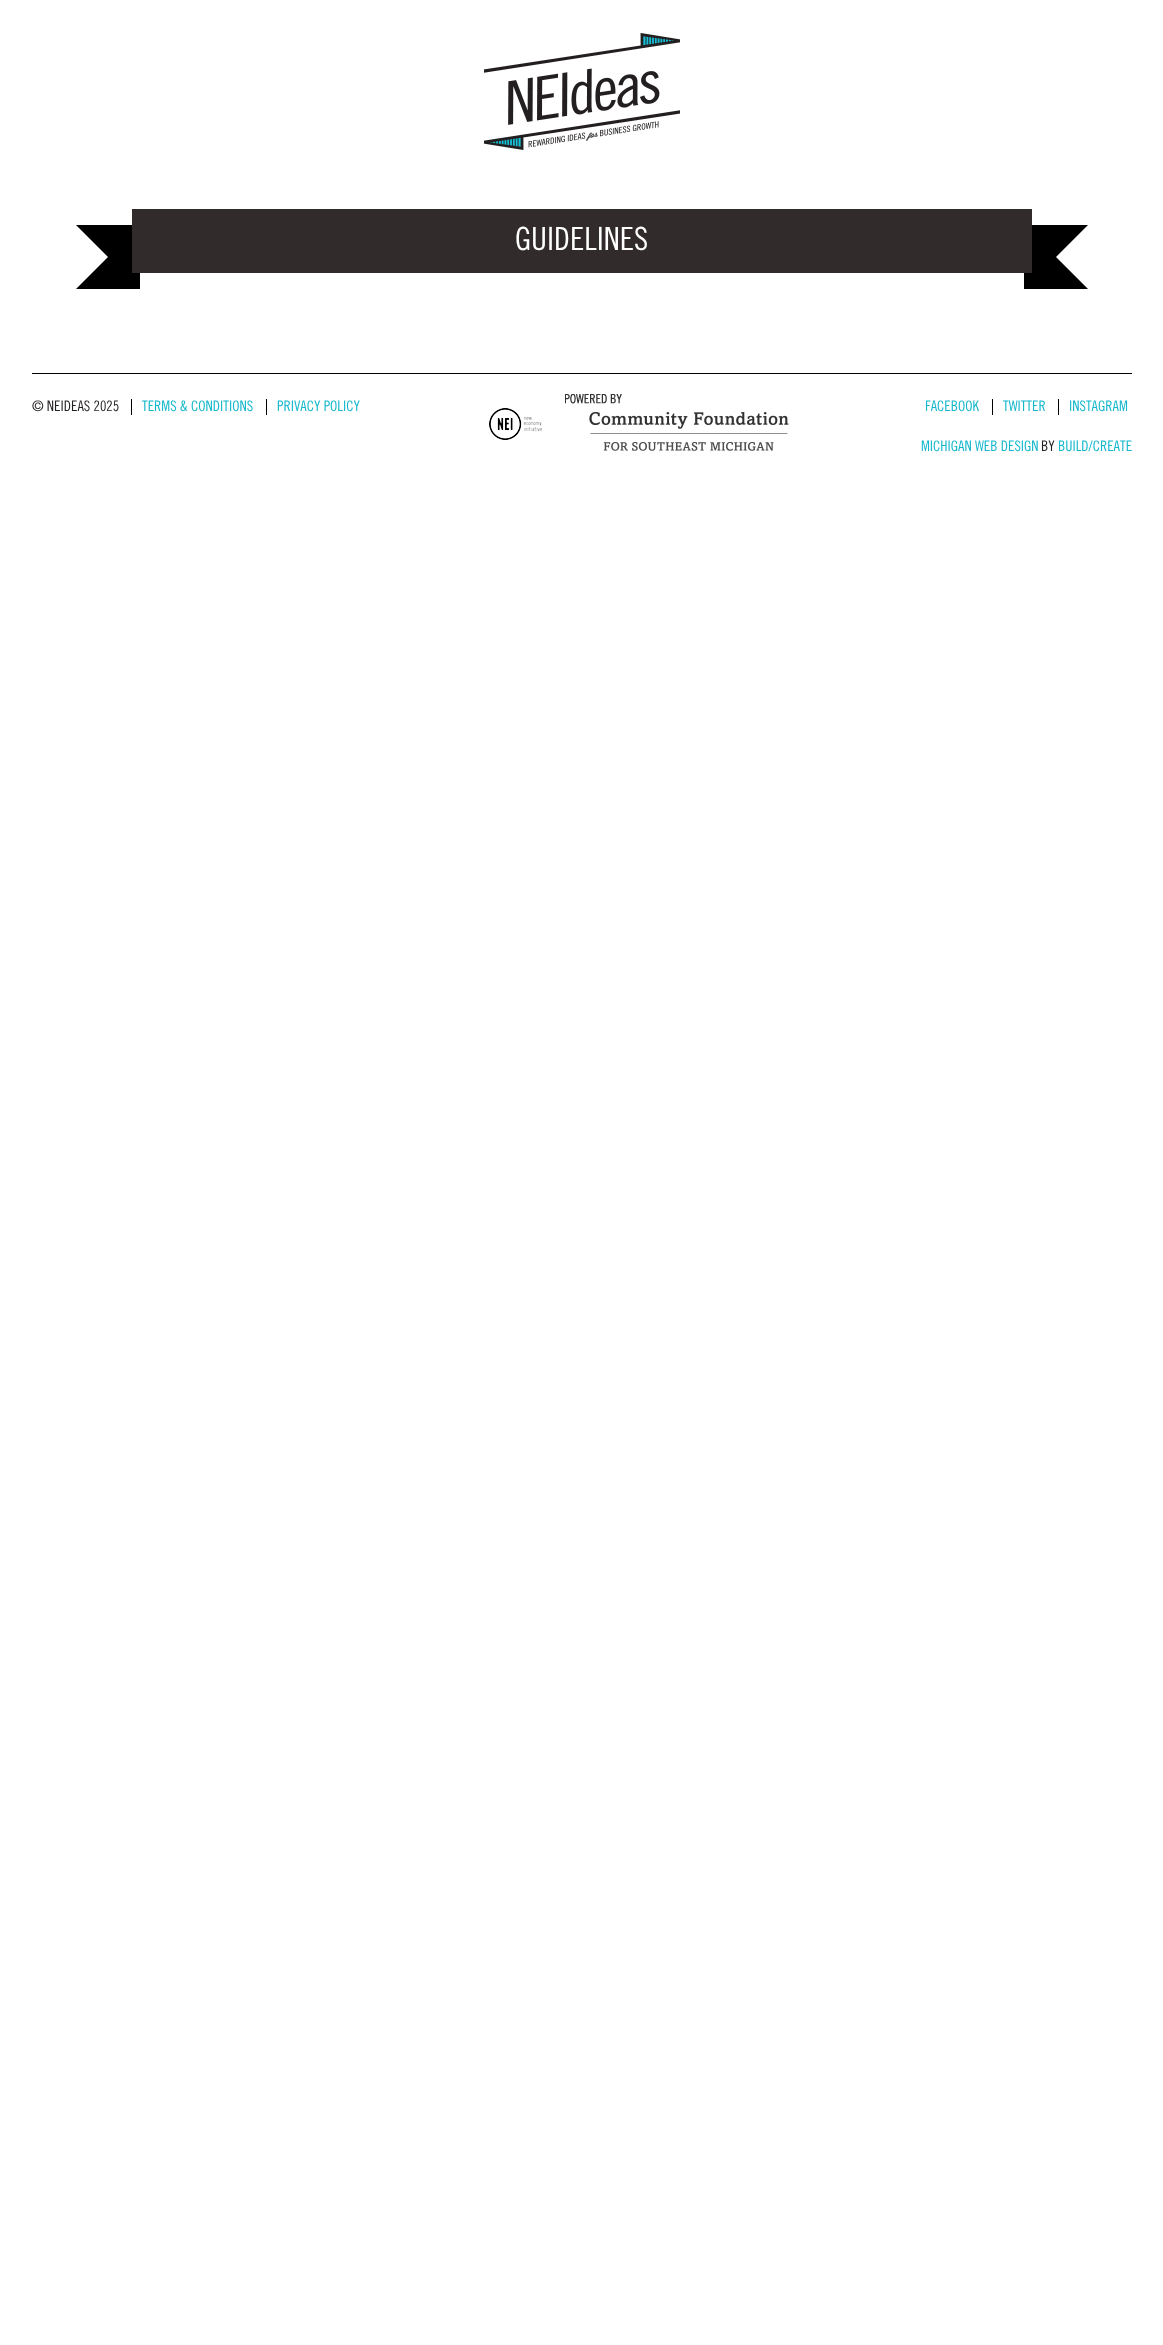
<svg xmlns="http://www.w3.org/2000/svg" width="1163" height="2345">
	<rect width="100%" height="100%" fill="#FFFFFF" />
	<image x="484" y="33" width="196" height="117" href="assets/img1.png" />
	<path d="M76 225H140L108 257Z" fill="#000000" />
	<rect x="108" y="225" width="32" height="64" fill="#000000" />
	<path d="M140 289H76L108 257Z" fill="#000000" />
	<path d="M1024 225H1088L1056 257Z" fill="#000000" />
	<path d="M1088 289H1024L1056 257Z" fill="#000000" />
	<rect x="1024" y="225" width="32" height="64" fill="#000000" />
	<rect x="132" y="209" width="900" height="64" fill="#312B2C" />
	<text x="515" y="250" font-family="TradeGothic" font-size="32" font-weight="500" fill="#FFFFFF">GUIDELINES</text>
	<rect x="32" y="373" width="1100" height="1" fill="#000000" />
	<text x="32" y="411" font-family="TradeGothic" font-size="14.5" font-weight="500" fill="#231F20">© NEIDEAS 2025</text>
	<rect x="131" y="399" width="1" height="16" fill="#000000" />
	<text x="142" y="411" font-family="TradeGothic" font-size="14.5" font-weight="500" fill="#14B7CC">TERMS &amp; CONDITIONS</text>
	<rect x="266" y="399" width="1" height="16" fill="#000000" />
	<text x="277" y="411" font-family="TradeGothic" font-size="14.5" font-weight="500" fill="#14B7CC">PRIVACY POLICY</text>
	<image x="489" y="408" width="53" height="32" href="assets/img2.png" />
	<image x="565" y="394" width="224" height="57" href="assets/img3.png" />
	<text x="925" y="411" font-family="TradeGothic" font-size="14.5" font-weight="500" fill="#14B7CC">FACEBOOK</text>
	<rect x="992" y="399" width="1" height="16" fill="#000000" />
	<text x="1003" y="411" font-family="TradeGothic" font-size="14.5" font-weight="500" fill="#14B7CC">TWITTER</text>
	<rect x="1058" y="399" width="1" height="16" fill="#000000" />
	<g font-family="TradeGothic" font-size="14.5" font-weight="500" fill="#14B7CC">
		<text x="1069" y="411">INSTAGRAM</text>
		<text x="921" y="451">MICHIGAN WEB DESIGN</text>
	</g>
	<text x="1041" y="451" font-family="TradeGothic" font-size="14.5" font-weight="500" fill="#231F20">BY</text>
	<text x="1058" y="451" font-family="TradeGothic" font-size="14.5" font-weight="500" fill="#14B7CC">BUILD/CREATE</text>
</svg>
